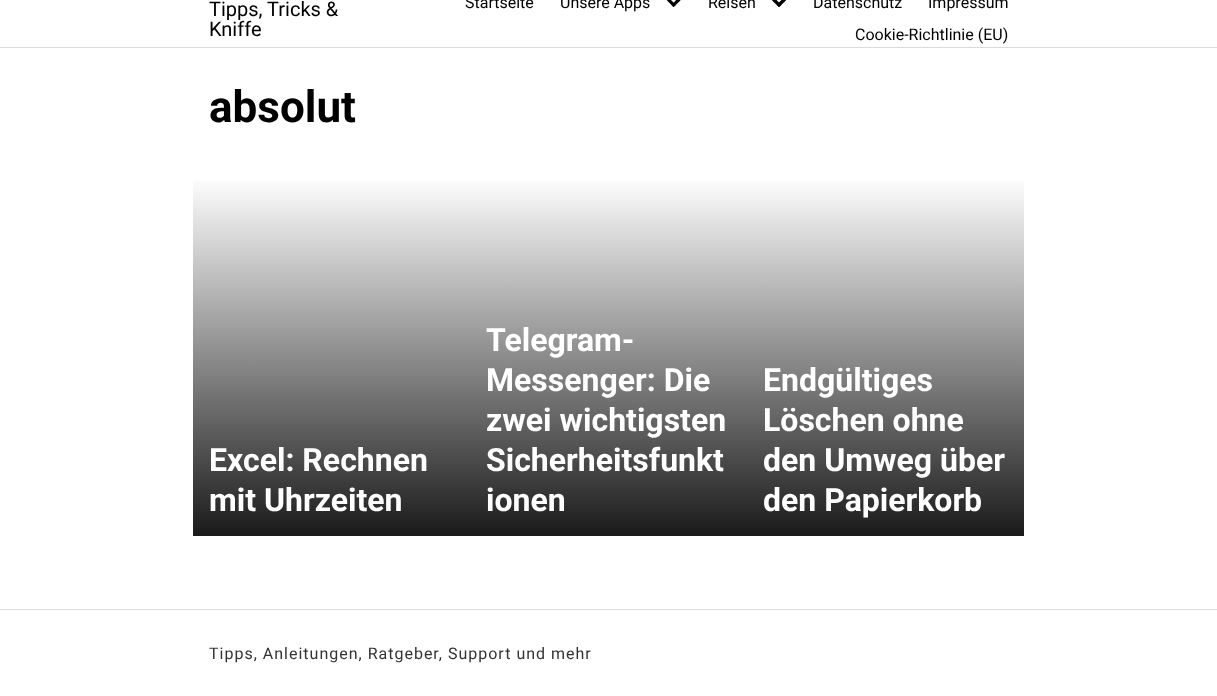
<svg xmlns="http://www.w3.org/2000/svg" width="1217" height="696">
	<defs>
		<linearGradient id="g1" gradientUnits="userSpaceOnUse" x1="332" y1="176" x2="332" y2="536"><stop offset="0" stop-color="#FFFFFF" /><stop offset="1" stop-color="#1A1A1A" /></linearGradient>
		<linearGradient id="g2" gradientUnits="userSpaceOnUse" x1="609" y1="176" x2="609" y2="536"><stop offset="0" stop-color="#FFFFFF" /><stop offset="1" stop-color="#1A1A1A" /></linearGradient>
		<linearGradient id="g3" gradientUnits="userSpaceOnUse" x1="886" y1="176" x2="886" y2="536"><stop offset="0" stop-color="#FFFFFF" /><stop offset="1" stop-color="#1A1A1A" /></linearGradient>
	</defs>
	<rect width="100%" height="100%" fill="#FFFFFF" />
	<rect x="0" y="47" width="1217" height="1" fill="#DBDBDB" />
	<g font-family="Roboto" font-size="20" fill="#000000">
		<text x="209" y="16">Tipps, Tricks &amp;</text>
		<text x="209" y="36">Kniffe</text>
	</g>
	<g font-family="Roboto" font-size="16" fill="#000000">
		<text x="465" y="8">Startseite</text>
		<text x="560" y="8">Unsere Apps</text>
	</g>
	<path d="M667 .5L669-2L676 5L673.5 7Z" fill="#000000" />
	<path d="M671.5 5L678-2L680.5 .5L673.5 7Z" fill="#000000" />
	<text x="708" y="8" font-family="Roboto" font-size="16" fill="#000000">Reisen</text>
	<path d="M772 .5L774.5-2L781.5 5L779 7Z" fill="#000000" />
	<path d="M776.5 5L783.5-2L786 .5L779 7Z" fill="#000000" />
	<g font-family="Roboto" font-size="16" fill="#000000">
		<text x="813" y="8">Datenschutz</text>
		<text x="928" y="8">Impressum</text>
		<text x="855" y="40">Cookie-Richtlinie (EU)</text>
	</g>
	<text x="209" y="122" font-family="Roboto" font-size="44" font-weight="700" fill="#000000">absolut</text>
	<rect x="193" y="180" width="277" height="356" fill="url(#g1)" />
	<g font-family="Roboto" font-size="32" font-weight="700" fill="#FFFFFF">
		<text x="209" y="471">Excel: Rechnen</text>
		<text x="209" y="511">mit Uhrzeiten</text>
	</g>
	<rect x="470" y="180" width="277" height="356" fill="url(#g2)" />
	<g font-family="Roboto" font-size="32" font-weight="700" fill="#FFFFFF">
		<text x="486" y="351">Telegram-</text>
		<text x="486" y="391">Messenger: Die</text>
		<text x="486" y="431">zwei wichtigsten</text>
		<text x="486" y="471">Sicherheitsfunkt</text>
		<text x="486" y="511">ionen</text>
	</g>
	<rect x="747" y="180" width="277" height="356" fill="url(#g3)" />
	<g font-family="Roboto" font-size="32" font-weight="700" fill="#FFFFFF">
		<text x="763" y="391">Endgültiges</text>
		<text x="763" y="431">Löschen ohne</text>
		<text x="763" y="471">den Umweg über</text>
		<text x="763" y="511">den Papierkorb</text>
	</g>
	<rect x="0" y="609" width="1217" height="1" fill="#DBDBDB" />
	<text x="209" y="659" font-family="Roboto" font-size="16" letter-spacing="1" fill="#333333">Tipps, Anleitungen, Ratgeber, Support und mehr</text>
</svg>
